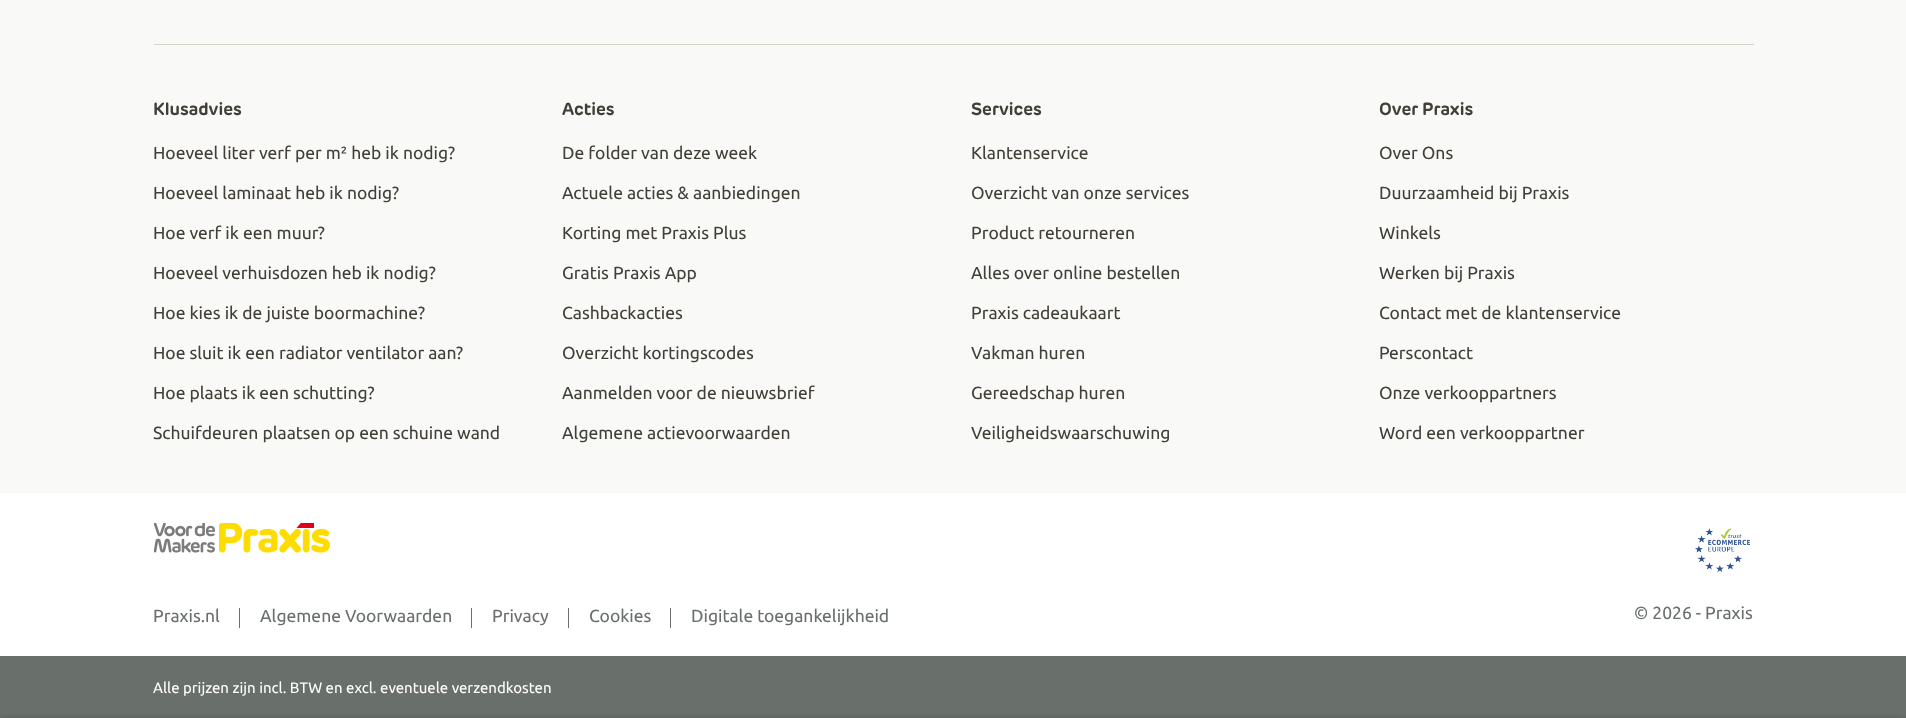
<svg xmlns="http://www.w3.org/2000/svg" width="1906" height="718">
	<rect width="100%" height="100%" fill="#FFFFFF" />
	<rect x="0" y="0" width="1906" height="493" fill="#F9F9F8" />
	<rect x="154" y="44" width="1600" height="1" fill="#D5D2C9" />
	<text x="153" y="115" font-family="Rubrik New" font-size="17.5" font-weight="700" fill="#413F37">Klusadvies</text>
	<g font-family="Ubuntu" font-size="17.5" fill="#413F37">
		<text x="153" y="159">Hoeveel liter verf per m² heb ik nodig?</text>
		<text x="153" y="199">Hoeveel laminaat heb ik nodig?</text>
		<text x="153" y="239">Hoe verf ik een muur?</text>
		<text x="153" y="279">Hoeveel verhuisdozen heb ik nodig?</text>
		<text x="153" y="319">Hoe kies ik de juiste boormachine?</text>
		<text x="153" y="359">Hoe sluit ik een radiator ventilator aan?</text>
		<text x="153" y="399">Hoe plaats ik een schutting?</text>
		<text x="153" y="439">Schuifdeuren plaatsen op een schuine wand</text>
	</g>
	<text x="562" y="115" font-family="Rubrik New" font-size="17.5" font-weight="700" fill="#413F37">Acties</text>
	<g font-family="Ubuntu" font-size="17.5" fill="#413F37">
		<text x="562" y="159">De folder van deze week</text>
		<text x="562" y="199">Actuele acties &amp; aanbiedingen</text>
		<text x="562" y="239">Korting met Praxis Plus</text>
		<text x="562" y="279">Gratis Praxis App</text>
		<text x="562" y="319">Cashbackacties</text>
		<text x="562" y="359">Overzicht kortingscodes</text>
		<text x="562" y="399">Aanmelden voor de nieuwsbrief</text>
		<text x="562" y="439">Algemene actievoorwaarden</text>
	</g>
	<text x="971" y="115" font-family="Rubrik New" font-size="17.5" font-weight="700" fill="#413F37">Services</text>
	<g font-family="Ubuntu" font-size="17.5" fill="#413F37">
		<text x="971" y="159">Klantenservice</text>
		<text x="971" y="199">Overzicht van onze services</text>
		<text x="971" y="239">Product retourneren</text>
		<text x="971" y="279">Alles over online bestellen</text>
		<text x="971" y="319">Praxis cadeaukaart</text>
		<text x="971" y="359">Vakman huren</text>
		<text x="971" y="399">Gereedschap huren</text>
		<text x="971" y="439">Veiligheidswaarschuwing</text>
	</g>
	<text x="1379" y="115" font-family="Rubrik New" font-size="17.5" font-weight="700" fill="#413F37">Over Praxis</text>
	<g font-family="Ubuntu" font-size="17.5" fill="#413F37">
		<text x="1379" y="159">Over Ons</text>
		<text x="1379" y="199">Duurzaamheid bij Praxis</text>
		<text x="1379" y="239">Winkels</text>
		<text x="1379" y="279">Werken bij Praxis</text>
		<text x="1379" y="319">Contact met de klantenservice</text>
		<text x="1379" y="359">Perscontact</text>
		<text x="1379" y="399">Onze verkooppartners</text>
		<text x="1379" y="439">Word een verkooppartner</text>
	</g>
	<image x="154" y="523" width="61" height="30" href="assets/img1.png" />
	<image x="219" y="523" width="111" height="30" href="assets/img2.png" />
	<image x="1695" y="528" width="55" height="44" href="assets/img3.png" />
	<text x="153" y="622" font-family="Ubuntu" font-size="17.5" fill="#696F6A">Praxis.nl</text>
	<rect x="239" y="608" width="1" height="20" fill="#696F6A" />
	<text x="260" y="622" font-family="Ubuntu" font-size="17.5" fill="#696F6A">Algemene Voorwaarden</text>
	<rect x="471" y="608" width="1" height="20" fill="#696F6A" />
	<text x="492" y="622" font-family="Ubuntu" font-size="17.5" fill="#696F6A">Privacy</text>
	<rect x="568" y="608" width="1" height="20" fill="#696F6A" />
	<text x="589" y="622" font-family="Ubuntu" font-size="17.5" fill="#696F6A">Cookies</text>
	<rect x="670" y="608" width="1" height="20" fill="#696F6A" />
	<g font-family="Ubuntu" font-size="17.5" fill="#696F6A">
		<text x="691" y="622">Digitale toegankelijkheid</text>
		<text x="1634" y="619">© 2026 - Praxis</text>
	</g>
	<rect x="0" y="656" width="1906" height="62" fill="#696F6A" />
	<text x="153" y="693" font-family="Ubuntu" font-size="15" fill="#FFFFFF">Alle prijzen zijn incl. BTW en excl. eventuele verzendkosten</text>
	<rect x="0" y="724" width="1906" height="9" fill="#000000" filter="blur(5px)" />
</svg>
